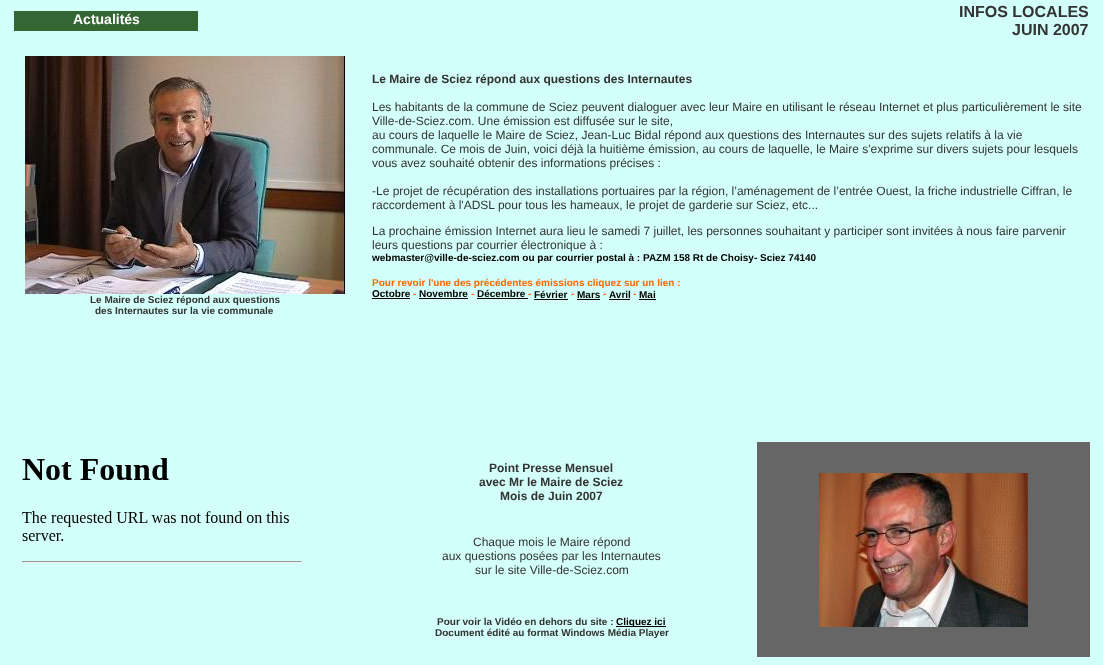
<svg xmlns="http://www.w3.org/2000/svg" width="1103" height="665">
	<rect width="100%" height="100%" fill="#D2FFF9" />
	<rect x="14" y="11" width="184" height="20" fill="#336633" />
	<text x="73" y="24" font-family="Liberation Sans" font-size="14" font-weight="700" fill="#FFFFFF">Actualités</text>
	<g font-family="Liberation Sans" font-size="16" font-weight="700" fill="#333333">
		<text x="959" y="17">INFOS LOCALES</text>
		<text x="1012" y="35">JUIN 2007</text>
	</g>
	<text x="372" y="83" font-family="Liberation Sans" font-size="12" font-weight="700" fill="#333333">Le Maire de Sciez répond aux questions des Internautes</text>
	<g font-family="Liberation Sans" font-size="12" fill="#333333">
		<text x="372" y="111">Les habitants de la commune de Sciez peuvent dialoguer avec leur Maire en utilisant le réseau Internet et plus particulièrement le site</text>
		<text x="372" y="125">Ville-de-Sciez.com. Une émission est diffusée sur le site,</text>
		<text x="372" y="139">au cours de laquelle le Maire de Sciez, Jean-Luc Bidal répond aux questions des Internautes sur des sujets relatifs à la vie</text>
		<text x="372" y="153">communale. Ce mois de Juin, voici déjà la huitième émission, au cours de laquelle, le Maire s'exprime sur divers sujets pour lesquels</text>
		<text x="372" y="167">vous avez souhaité obtenir des informations précises :</text>
		<text x="372" y="195">-Le projet de récupération des installations portuaires par la région, l’aménagement de l’entrée Ouest, la friche industrielle Ciffran, le</text>
		<text x="372" y="209">raccordement à l'ADSL pour tous les hameaux, le projet de garderie sur Sciez, etc...</text>
		<text x="372" y="235">La prochaine émission Internet aura lieu le samedi 7 juillet, les personnes souhaitant y participer sont invitées à nous faire parvenir</text>
		<text x="372" y="249">leurs questions par courrier électronique à :</text>
	</g>
	<text x="372" y="261" font-family="Liberation Sans" font-size="10" font-weight="700" fill="#000000">webmaster@ville-de-sciez.com ou par courrier postal à : PAZM 158 Rt de Choisy- Sciez 74140</text>
	<text x="372" y="286" font-family="Liberation Sans" font-size="10" font-weight="700" fill="#FF6600">Pour revoir l'une des précédentes émissions cliquez sur un lien :</text>
	<text x="372" y="297" font-family="Liberation Sans" font-size="10" font-weight="700" fill="#000000">Octobre</text>
	<rect x="372" y="298" width="38" height="1" fill="#000000" />
	<text x="413" y="297" font-family="Liberation Sans" font-size="10" font-weight="700" fill="#FF6600">-</text>
	<rect x="419" y="298" width="49" height="1" fill="#000000" />
	<text x="419" y="297" font-family="Liberation Sans" font-size="10" font-weight="700" fill="#000000">Novembre</text>
	<text x="471" y="297" font-family="Liberation Sans" font-size="10" font-weight="700" fill="#FF6600">-</text>
	<text x="477" y="297" font-family="Liberation Sans" font-size="10" font-weight="700" fill="#000000">Décembre</text>
	<text x="528" y="297" font-family="Liberation Sans" font-size="10" font-weight="700" fill="#FF6600">-</text>
	<rect x="477" y="298" width="51" height="1" fill="#000000" />
	<text x="534" y="298" font-family="Liberation Sans" font-size="10" font-weight="700" fill="#000000">Février</text>
	<rect x="534" y="299" width="34" height="1" fill="#000000" />
	<text x="571" y="297" font-family="Liberation Sans" font-size="10" font-weight="700" fill="#FF6600">-</text>
	<text x="577" y="298" font-family="Liberation Sans" font-size="10" font-weight="700" fill="#000000">Mars</text>
	<rect x="577" y="299" width="23" height="1" fill="#000000" />
	<text x="603" y="297" font-family="Liberation Sans" font-size="10" font-weight="700" fill="#FF6600">-</text>
	<text x="609" y="298" font-family="Liberation Sans" font-size="10" font-weight="700" fill="#000000">Avril</text>
	<rect x="609" y="299" width="21" height="1" fill="#000000" />
	<text x="633" y="297" font-family="Liberation Sans" font-size="10" font-weight="700" fill="#FF6600">-</text>
	<text x="639" y="298" font-family="Liberation Sans" font-size="10" font-weight="700" fill="#000000">Mai</text>
	<rect x="639" y="299" width="17" height="1" fill="#000000" />
	<image x="25" y="56" width="320" height="238" href="assets/img1.png" />
	<g font-family="Liberation Sans" font-size="10" font-weight="700" fill="#333333">
		<text x="90" y="303">Le Maire de Sciez répond aux questions</text>
		<text x="95" y="314">des Internautes sur la vie communale</text>
	</g>
	<image x="22" y="458" width="280" height="105" href="assets/img2.png" />
	<g font-family="Liberation Sans" font-size="12" font-weight="700" fill="#333333">
		<text x="489" y="472">Point Presse Mensuel</text>
		<text x="479" y="486">avec Mr le Maire de Sciez</text>
		<text x="500" y="500">Mois de Juin 2007</text>
	</g>
	<g font-family="Liberation Sans" font-size="12" fill="#333333">
		<text x="473" y="546">Chaque mois le Maire répond</text>
		<text x="442" y="560">aux questions posées par les Internautes</text>
		<text x="475" y="574">sur le site Ville-de-Sciez.com</text>
	</g>
	<text x="437" y="625" font-family="Liberation Sans" font-size="10" font-weight="700" fill="#333333">Pour voir la Vidéo en dehors du site :</text>
	<rect x="616" y="626" width="50" height="1" fill="#000000" />
	<text x="616" y="625" font-family="Liberation Sans" font-size="10" font-weight="700" fill="#000000">Cliquez ici</text>
	<text x="435" y="636" font-family="Liberation Sans" font-size="10" font-weight="700" fill="#333333">Document édité au format Windows Média Player</text>
	<rect x="757" y="442" width="333" height="215" fill="#666666" />
	<image x="819" y="473" width="209" height="154" href="assets/img3.png" />
</svg>
